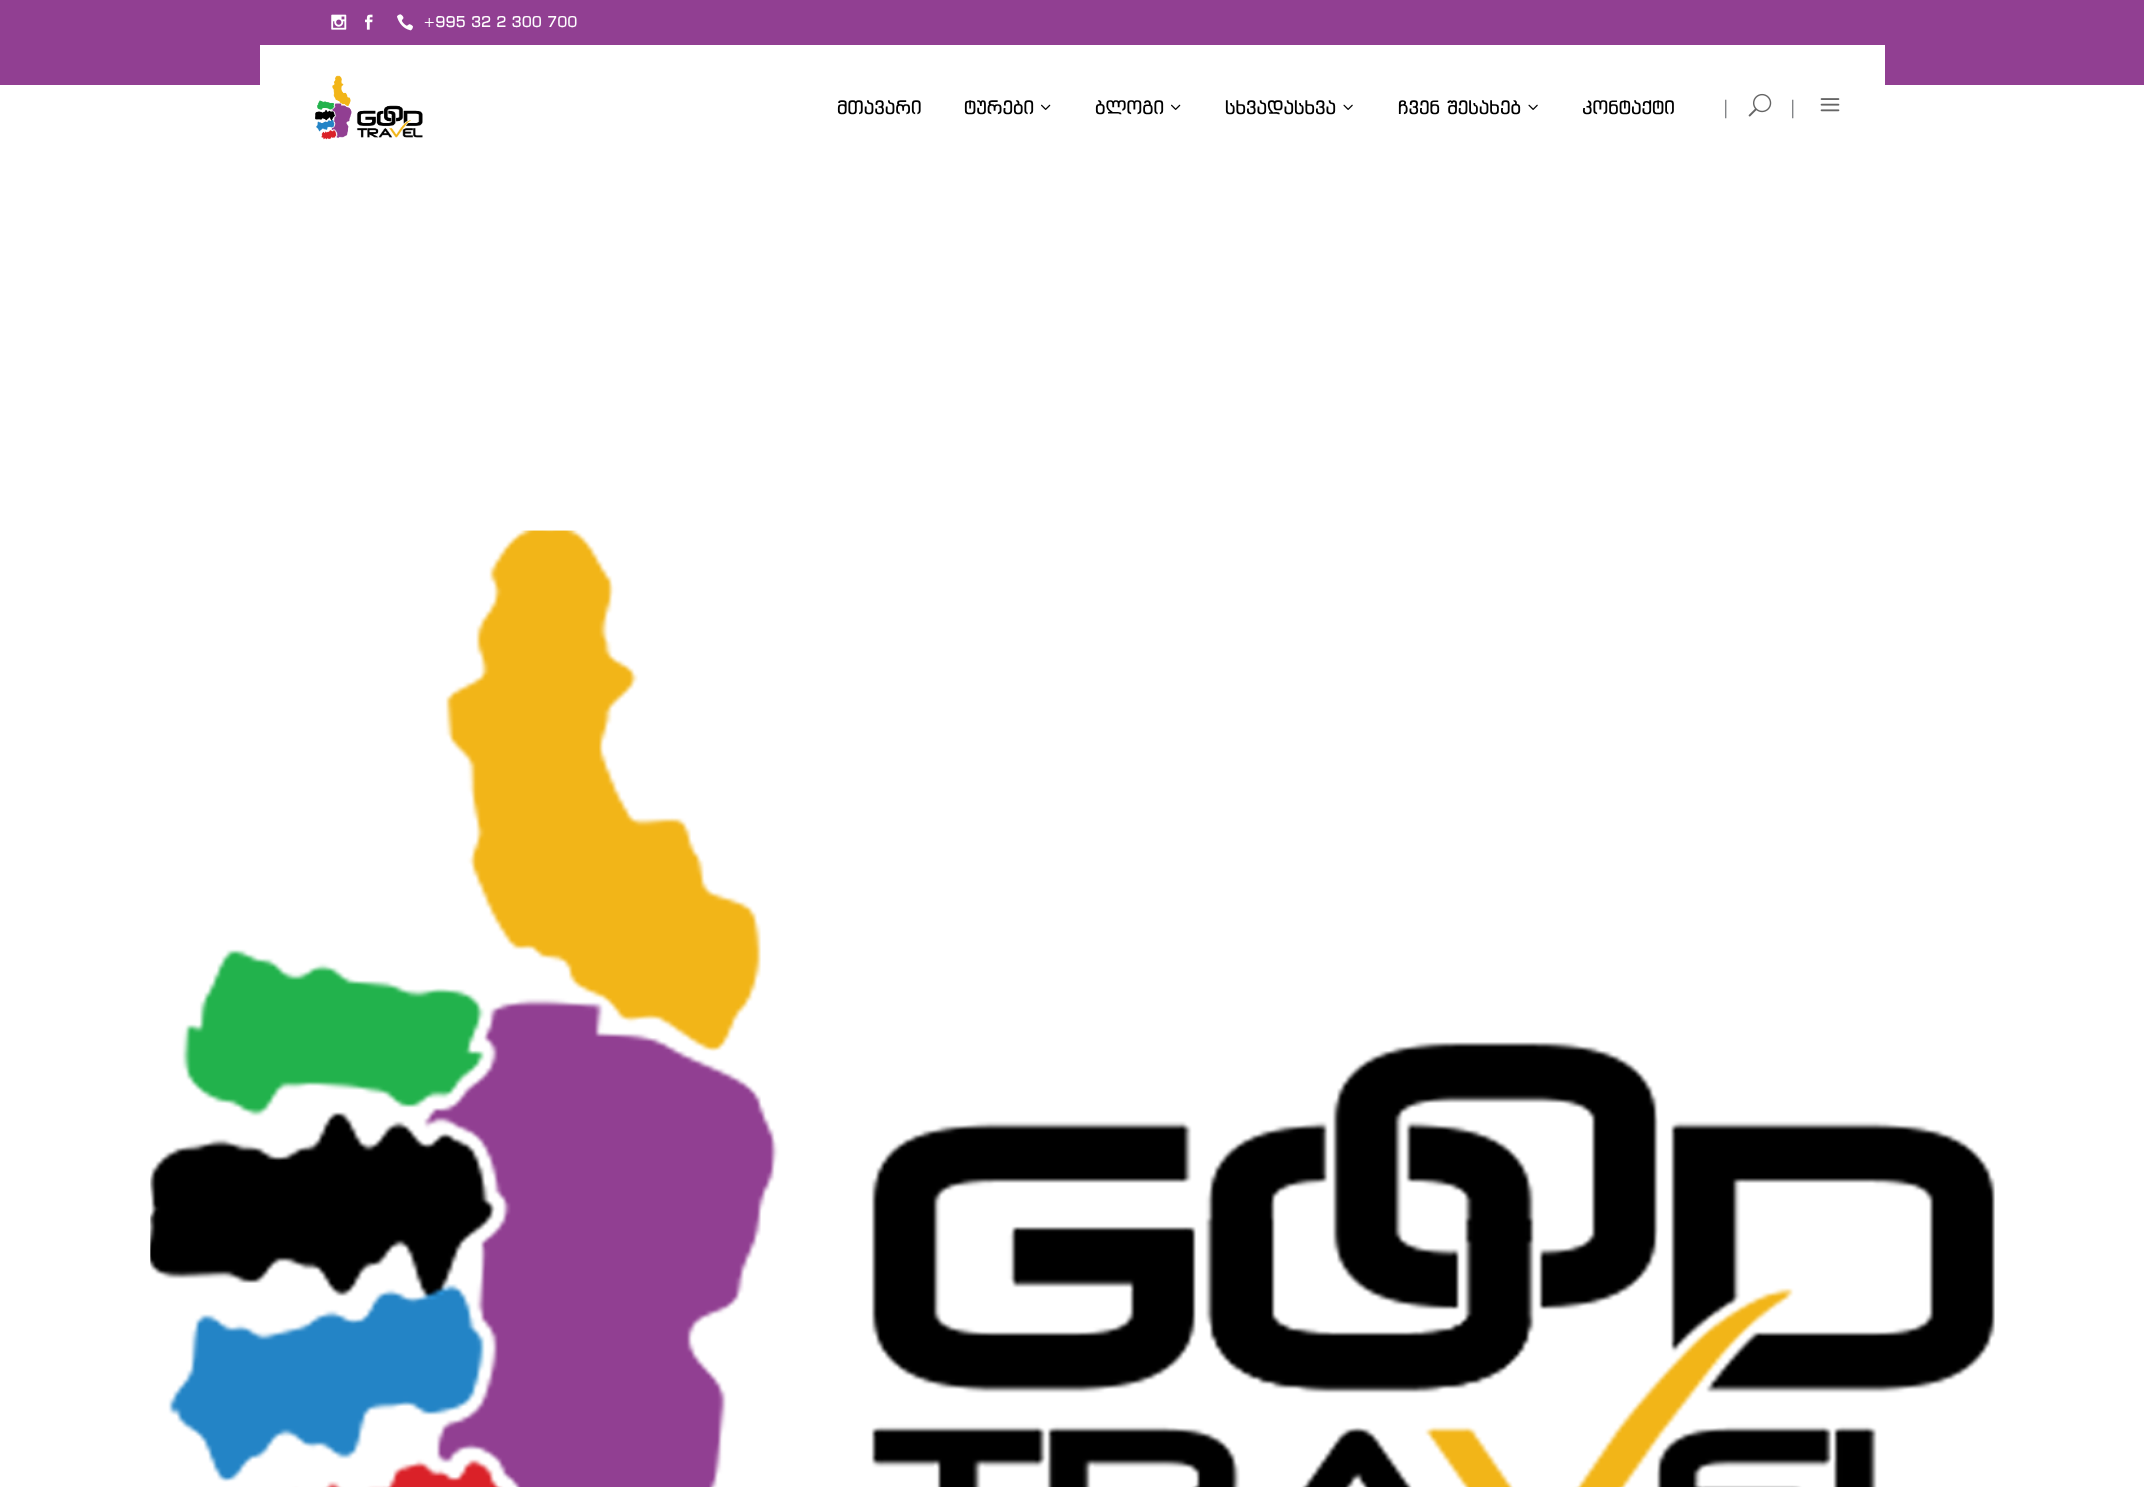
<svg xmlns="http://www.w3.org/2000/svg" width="2144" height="1487">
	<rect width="100%" height="100%" fill="#FFFFFF" />
	<rect x="0" y="0" width="2144" height="85" fill="#913F92" />
	<image x="331" y="14" width="16" height="16" href="assets/img1.png" />
	<image x="365" y="14" width="8" height="16" href="assets/img2.png" />
	<image x="397" y="14" width="16" height="17" href="assets/img3.png" />
	<text x="423" y="27" font-family="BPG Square" font-size="15" fill="#FFFFFF">+995 32 2 300 700</text>
	<rect x="260" y="45" width="1625" height="40" fill="#FFFFFF" />
	<image x="315" y="75" width="108" height="65" href="assets/img4.png" />
	<g font-family="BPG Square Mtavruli" font-size="18.75" fill="#000000">
		<text x="837" y="114">მთავარი</text>
		<text x="964" y="114">ტურები</text>
	</g>
	<image x="1041" y="104" width="10" height="6" href="assets/img5.png" />
	<text x="1095" y="114" font-family="BPG Square Mtavruli" font-size="18.75" fill="#000000">ბლოგი</text>
	<image x="1171" y="104" width="10" height="6" href="assets/img5.png" />
	<text x="1225" y="114" font-family="BPG Square Mtavruli" font-size="18.75" fill="#000000">სხვადასხვა</text>
	<image x="1343" y="104" width="10" height="6" href="assets/img6.png" />
	<text x="1398" y="114" font-family="BPG Square Mtavruli" font-size="18.75" fill="#000000">ჩვენ შესახებ</text>
	<image x="1528" y="104" width="10" height="6" href="assets/img6.png" />
	<text x="1582" y="114" font-family="BPG Square Mtavruli" font-size="18.75" fill="#000000">კონტაქტი</text>
	<text x="1721" y="114" font-family="BPG Square" font-size="18.75" fill="#808285">|</text>
	<image x="1748" y="93" width="24" height="24" href="assets/img7.png" />
	<text x="1788" y="114" font-family="BPG Square" font-size="18.75" fill="#808285">|</text>
	<image x="1820" y="98" width="20" height="14" href="assets/img8.png" />
	<image x="150" y="530" width="1845" height="957" href="assets/img9.png" />
</svg>
